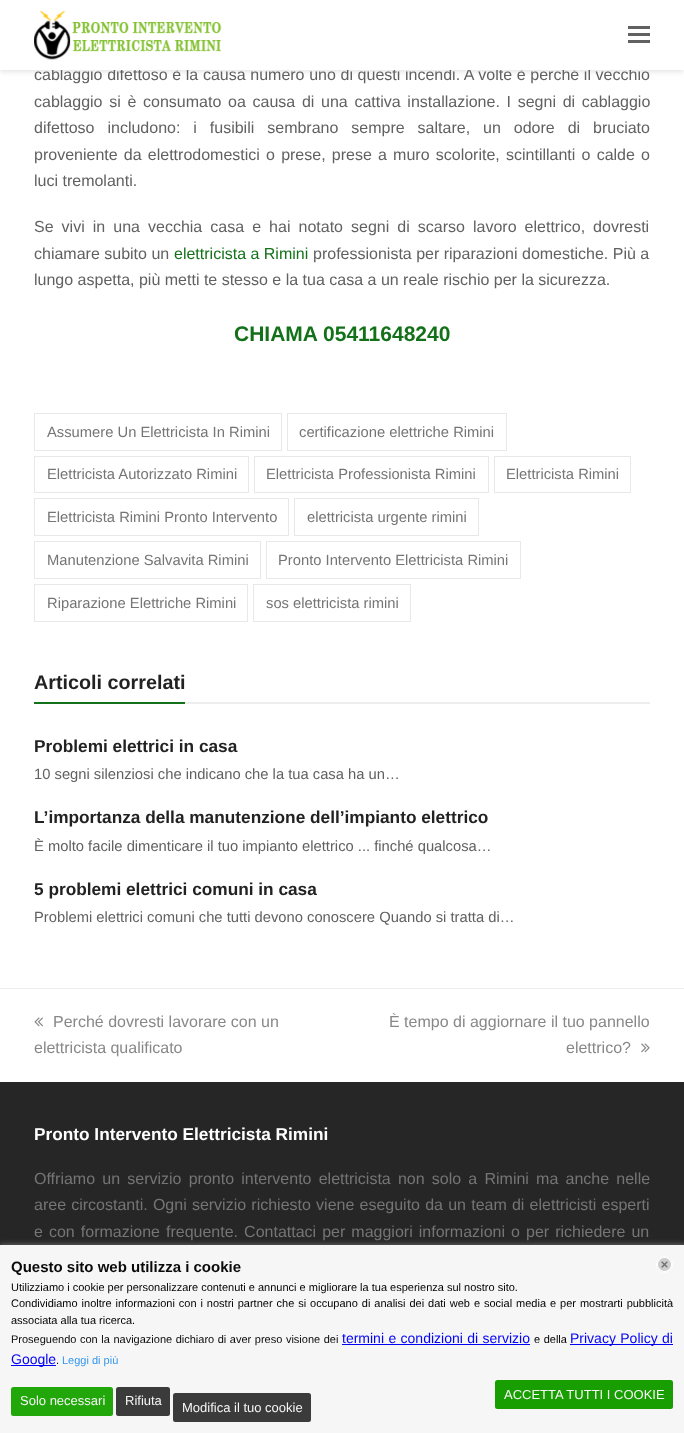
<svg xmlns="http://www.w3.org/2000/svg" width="684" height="1433">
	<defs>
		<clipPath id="clip1"><rect x="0" y="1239" width="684" height="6" /></clipPath>
	</defs>
	<rect width="100%" height="100%" fill="#FFFFFF" />
	<rect x="0" y="2" width="684" height="70" fill="#000000" fill-opacity="0.1" filter="blur(2.5px)" />
	<text x="34" y="80" word-spacing="0.2" font-family="Liberation Sans" font-size="16" fill="#616161">cablaggio difettoso è la causa numero uno di questi incendi. A volte è perché il vecchio</text>
	<rect x="0" y="0" width="684" height="70" fill="#FFFFFF" />
	<image x="34" y="10" width="188" height="50" href="assets/img1.png" />
	<rect x="628" y="33" width="22" height="3" fill="#616161" />
	<rect x="628" y="26" width="22" height="3" fill="#616161" />
	<rect x="628" y="40" width="22" height="3" fill="#616161" />
	<g font-family="Liberation Sans" font-size="16" fill="#616161">
		<text x="34" y="107" word-spacing="2.25">cablaggio si è consumato oa causa di una cattiva installazione. I segni di cablaggio</text>
		<text x="34" y="133" word-spacing="8.5">difettoso includono: i fusibili sembrano sempre saltare, un odore di bruciato</text>
		<text x="34" y="160" word-spacing="1.75">proveniente da elettrodomestici o prese, prese a muro scolorite, scintillanti o calde o</text>
		<text x="34" y="186">luci tremolanti.</text>
		<text x="34" y="232" word-spacing="3.6">Se vivi in una vecchia casa e hai notato segni di scarso lavoro elettrico, dovresti</text>
		<text x="34" y="259">chiamare subito un</text>
	</g>
	<text x="174" y="259" font-family="Liberation Sans" font-size="16" fill="#137219">elettricista a Rimini</text>
	<g font-family="Liberation Sans" font-size="16" fill="#616161">
		<text x="313" y="259">professionista per riparazioni domestiche. Più a</text>
		<text x="34" y="285">lungo aspetta, più metti te stesso e la tua casa a un reale rischio per la sicurezza.</text>
	</g>
	<text x="234" y="341" font-family="Liberation Sans" font-size="21" font-weight="700" fill="#137219">CHIAMA 05411648240</text>
	<rect x="34.5" y="413.5" width="247" height="37" fill="none" stroke="#E8E8E8" />
	<text x="47" y="437" font-family="Liberation Sans" font-size="14.75" fill="#757575">Assumere Un Elettricista In Rimini</text>
	<rect x="287.5" y="413.5" width="219" height="37" fill="none" stroke="#E8E8E8" />
	<text x="299" y="437" font-family="Liberation Sans" font-size="14.75" fill="#757575">certificazione elettriche Rimini</text>
	<rect x="34.5" y="456.5" width="214" height="36" fill="none" stroke="#E8E8E8" />
	<text x="47" y="479" font-family="Liberation Sans" font-size="14.75" fill="#757575">Elettricista Autorizzato Rimini</text>
	<rect x="254.5" y="456.5" width="234" height="36" fill="none" stroke="#E8E8E8" />
	<text x="266" y="479" font-family="Liberation Sans" font-size="14.75" fill="#757575">Elettricista Professionista Rimini</text>
	<rect x="494.5" y="456.5" width="136" height="36" fill="none" stroke="#E8E8E8" />
	<text x="506" y="479" font-family="Liberation Sans" font-size="14.75" fill="#757575">Elettricista Rimini</text>
	<rect x="34.5" y="498.5" width="254" height="37" fill="none" stroke="#E8E8E8" />
	<text x="47" y="522" font-family="Liberation Sans" font-size="14.75" fill="#757575">Elettricista Rimini Pronto Intervento</text>
	<rect x="294.5" y="498.5" width="184" height="37" fill="none" stroke="#E8E8E8" />
	<text x="307" y="522" font-family="Liberation Sans" font-size="14.75" fill="#757575">elettricista urgente rimini</text>
	<rect x="34.5" y="541.5" width="226" height="37" fill="none" stroke="#E8E8E8" />
	<text x="47" y="565" font-family="Liberation Sans" font-size="14.75" fill="#757575">Manutenzione Salvavita Rimini</text>
	<rect x="266.5" y="541.5" width="254" height="37" fill="none" stroke="#E8E8E8" />
	<text x="278" y="565" font-family="Liberation Sans" font-size="14.75" fill="#757575">Pronto Intervento Elettricista Rimini</text>
	<rect x="34.5" y="584.5" width="213" height="37" fill="none" stroke="#E8E8E8" />
	<text x="47" y="608" font-family="Liberation Sans" font-size="14.75" fill="#757575">Riparazione Elettriche Rimini</text>
	<rect x="253.5" y="584.5" width="157" height="37" fill="none" stroke="#E8E8E8" />
	<text x="266" y="608" font-family="Liberation Sans" font-size="14.75" fill="#757575">sos elettricista rimini</text>
	<rect x="185" y="702" width="465" height="2" fill="#EEEEEE" />
	<rect x="34" y="702" width="151" height="2" fill="#137219" />
	<text x="34" y="689" font-family="Liberation Sans" font-size="19.75" font-weight="700" fill="#222222">Articoli correlati</text>
	<text x="34" y="752" font-family="Liberation Sans" font-size="17.25" font-weight="700" fill="#222222">Problemi elettrici in casa</text>
	<text x="34" y="779" font-family="Liberation Sans" font-size="14.75" fill="#616161">10 segni silenziosi che indicano che la tua casa ha un…</text>
	<text x="34" y="823" font-family="Liberation Sans" font-size="17.25" font-weight="700" fill="#222222">L’importanza della manutenzione dell’impianto elettrico</text>
	<text x="34" y="851" font-family="Liberation Sans" font-size="14.75" fill="#616161">È molto facile dimenticare il tuo impianto elettrico ... finché qualcosa…</text>
	<text x="34" y="895" font-family="Liberation Sans" font-size="17.25" font-weight="700" fill="#222222">5 problemi elettrici comuni in casa</text>
	<text x="34" y="922" font-family="Liberation Sans" font-size="14.75" fill="#616161">Problemi elettrici comuni che tutti devono conoscere Quando si tratta di…</text>
	<rect x="0" y="988" width="684" height="1" fill="#EEEEEE" />
	<image x="34" y="1017" width="9" height="10" href="assets/img2.png" />
	<g font-family="Liberation Sans" font-size="16" fill="#888888">
		<text x="53" y="1027">Perché dovresti lavorare con un</text>
		<text x="34" y="1053">elettricista qualificato</text>
		<text x="389" y="1027">È tempo di aggiornare il tuo pannello</text>
		<text x="566" y="1053">elettrico?</text>
	</g>
	<image x="641" y="1043" width="9" height="10" href="assets/img3.png" />
	<rect x="0" y="1082" width="684" height="163" fill="#262626" />
	<rect x="0" y="1245" width="684" height="188" fill="#F6F6F6" />
	<text x="34" y="1140" font-family="Liberation Sans" font-size="17.25" font-weight="700" fill="#FFFFFF">Pronto Intervento Elettricista Rimini</text>
	<g font-family="Liberation Sans" font-size="16" fill="#757575">
		<text x="34" y="1184" word-spacing="2.75">Offriamo un servizio pronto intervento elettricista non solo a Rimini ma anche nelle</text>
		<text x="34" y="1210" word-spacing="0.75">aree circostanti. Ogni servizio richiesto viene eseguito da un team di elettricisti esperti</text>
		<text x="34" y="1237" word-spacing="1.6">e con formazione frequente. Contattaci per maggiori informazioni o per richiedere un</text>
	</g>
	<g clip-path="url(#clip1)">
		<rect x="0" y="1244" width="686" height="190" fill="#8E8E8E" fill-opacity="0.58" filter="blur(2.5px)" />
	</g>
	<image x="656" y="1256" width="17" height="17" href="assets/img4.png" />
	<text x="11" y="1272" font-family="Liberation Sans" font-size="15" font-weight="700" fill="#0A0A0A">Questo sito web utilizza i cookie</text>
	<g font-family="Liberation Sans" font-size="11" fill="#020202">
		<text x="11" y="1291">Utilizziamo i cookie per personalizzare contenuti e annunci e migliorare la tua esperienza sul nostro sito.</text>
		<text x="11" y="1307" word-spacing="0.9">Condividiamo inoltre informazioni con i nostri partner che si occupano di analisi dei dati web e social media e per mostrarti pubblicità</text>
		<text x="11" y="1324">associata alla tua ricerca.</text>
	</g>
	<text x="11" y="1343" word-spacing="0.5" font-family="Liberation Sans" font-size="11" fill="#0A0A0A">Proseguendo con la navigazione dichiaro di aver preso visione dei</text>
	<text x="342" y="1343" word-spacing="0.5" font-family="Liberation Sans" font-size="14" fill="#0202F6">termini e condizioni di servizio</text>
	<rect x="342" y="1344" width="188" height="1" fill="#0202F6" />
	<text x="534" y="1343" word-spacing="0.5" font-family="Liberation Sans" font-size="11" fill="#020202">e della</text>
	<rect x="570" y="1344" width="103" height="1" fill="#0202F6" />
	<text x="570" y="1343" word-spacing="0.5" font-family="Liberation Sans" font-size="14" fill="#0202F6">Privacy Policy di</text>
	<rect x="11" y="1365" width="45" height="1" fill="#0202F6" />
	<text x="11" y="1364" font-family="Liberation Sans" font-size="14" fill="#0202F6">Google</text>
	<text x="56" y="1364" font-family="Liberation Sans" font-size="11" fill="#020202">.</text>
	<text x="62" y="1364" font-family="Liberation Sans" font-size="11" fill="#3496ED">Leggi di più</text>
	<rect x="11" y="1387" width="102" height="29" rx="2.5" fill="#18A300" fill-opacity="0.96" />
	<text x="20" y="1405" font-family="Liberation Sans" font-size="13" fill="#F6F6F6">Solo necessari</text>
	<rect x="116" y="1387" width="54" height="29" rx="2.5" fill="#333333" fill-opacity="0.96" />
	<text x="125" y="1405" font-family="Liberation Sans" font-size="13" fill="#F6F6F6">Rifiuta</text>
	<rect x="495" y="1380" width="178" height="29" rx="2.5" fill="#199E02" />
	<text x="504" y="1399" font-family="Liberation Sans" font-size="13" fill="#F6F6F6">ACCETTA TUTTI I COOKIE</text>
	<rect x="173" y="1393" width="138" height="29" rx="2.5" fill="#333333" fill-opacity="0.96" />
	<text x="182" y="1412" font-family="Liberation Sans" font-size="13" fill="#F6F6F6">Modifica il tuo cookie</text>
</svg>
